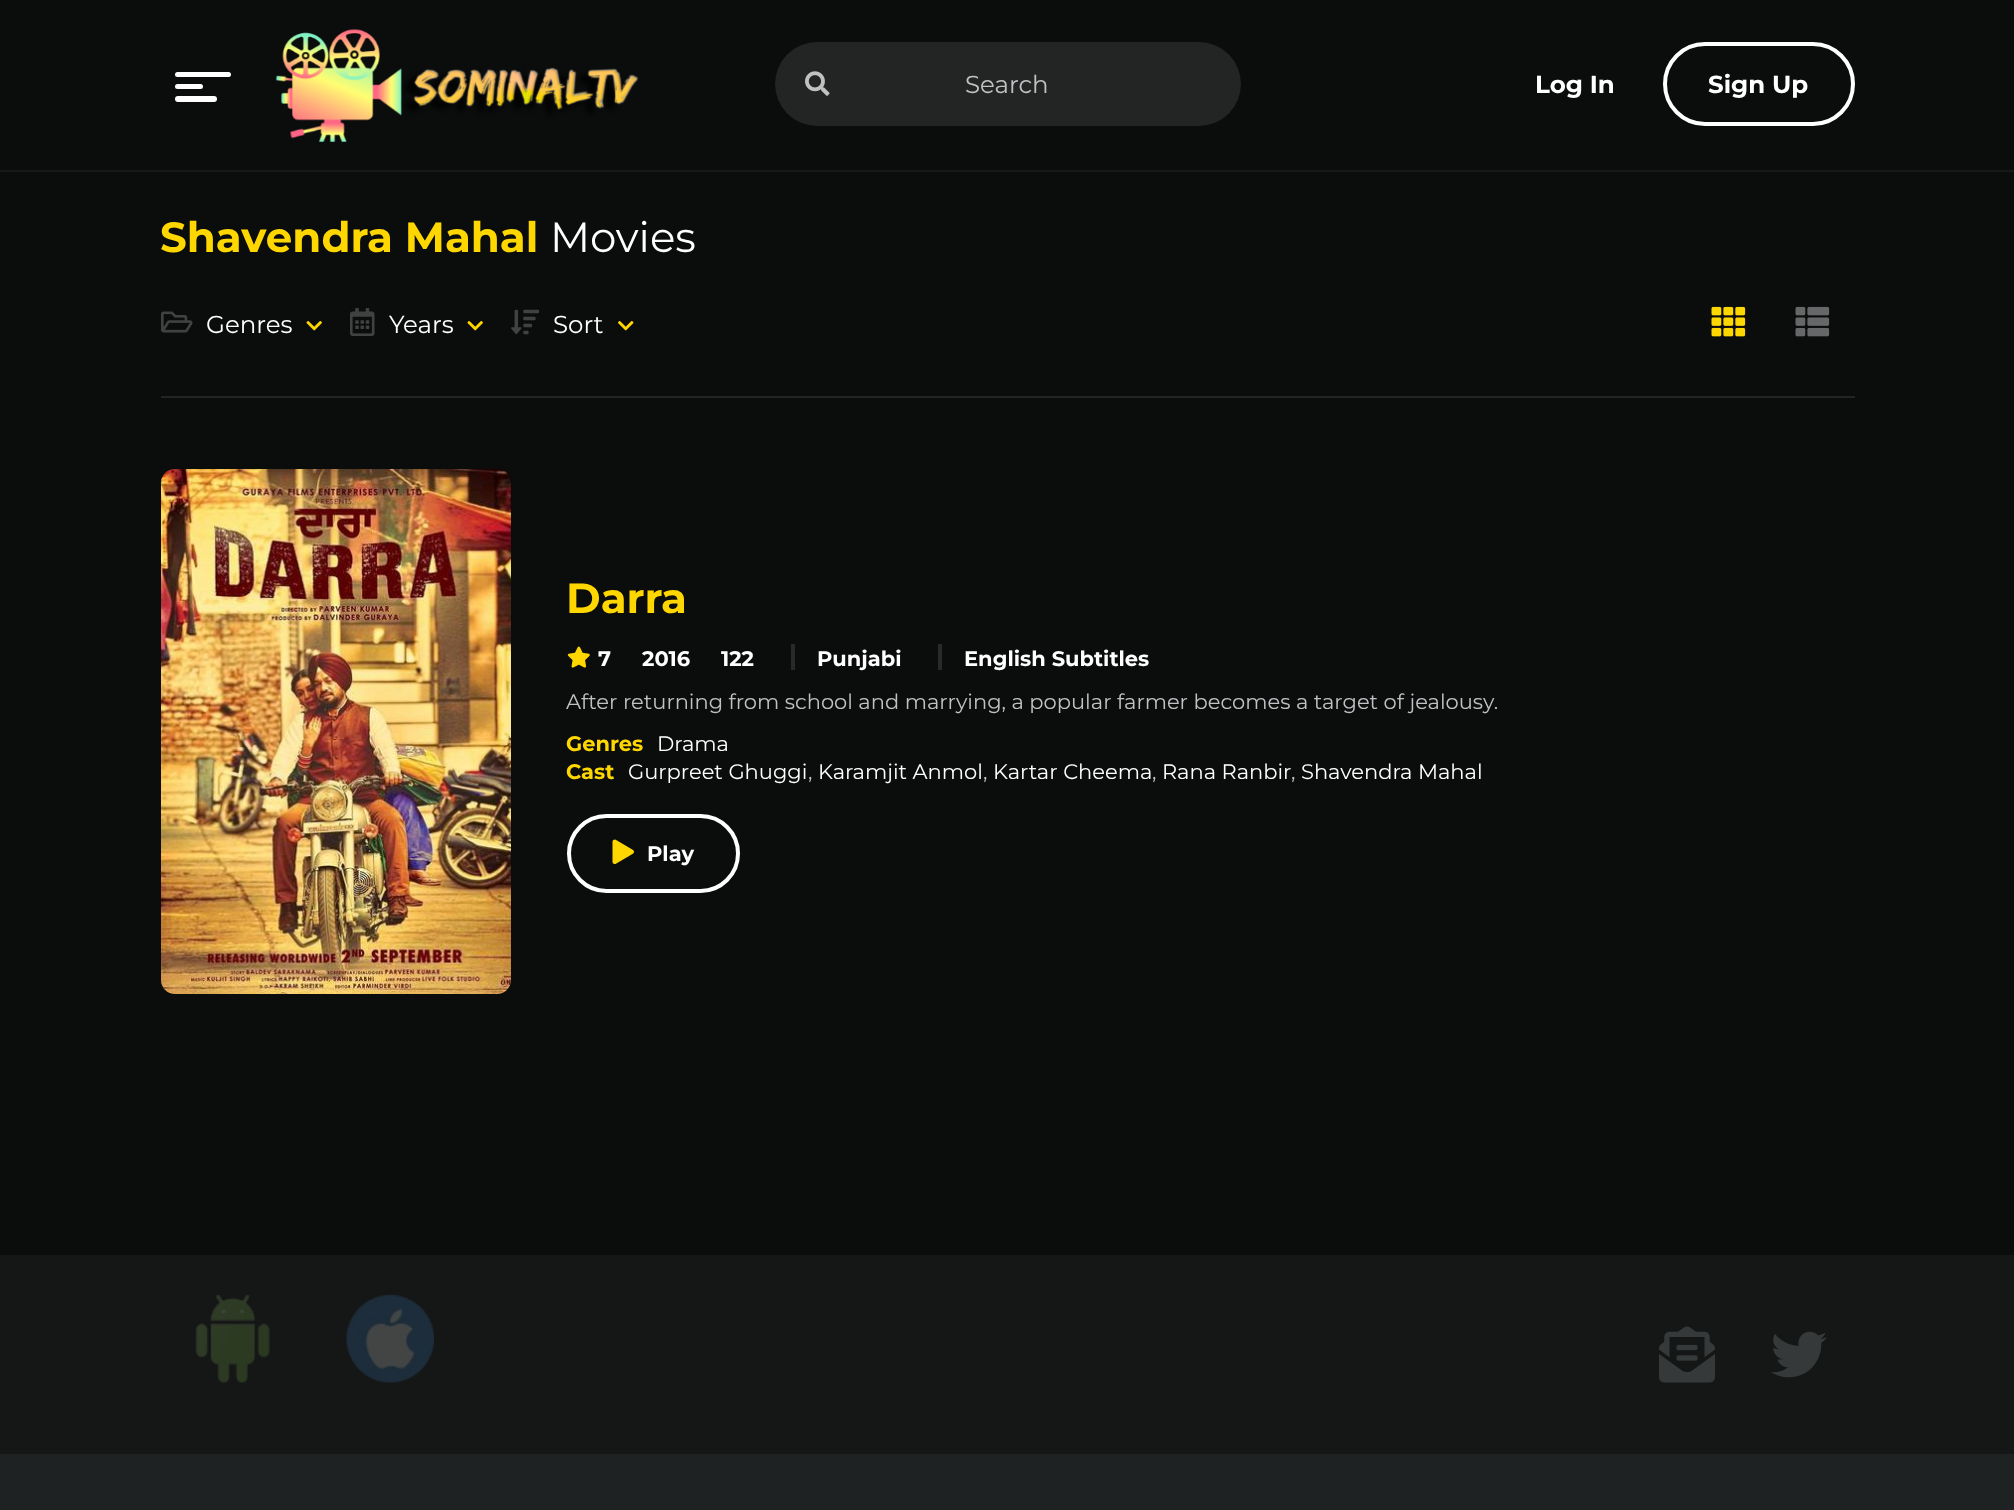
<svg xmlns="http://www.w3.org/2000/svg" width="2014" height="1510">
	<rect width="100%" height="100%" fill="#0B0C0C" />
	<rect x="0" y="170" width="2014" height="2" fill="#171818" />
	<rect x="175" y="72" width="56" height="5" rx="2.5" fill="#FFFFFF" />
	<rect x="175" y="84" width="28" height="5" rx="2.5" fill="#FFFFFF" />
	<rect x="175" y="96" width="42" height="6" rx="3" fill="#FFFFFF" />
	<image x="275" y="29" width="364" height="113" href="assets/img1.png" />
	<rect x="775" y="42" width="466" height="84" rx="42" fill="#232424" />
	<image x="805" y="71" width="25" height="25" href="assets/img2.png" />
	<text x="965" y="93" font-family="'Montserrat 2'" font-size="24.5" font-weight="100" fill="#BFC1C3">Search</text>
	<text x="1535" y="93" font-family="Montserrat" font-size="24.5" font-weight="100" fill="#FFFFFF">Log In</text>
	<rect x="1665" y="44" width="188" height="80" rx="40" fill="none" stroke="#FFFFFF" stroke-width="4" />
	<text x="1708" y="93" font-family="Montserrat" font-size="24.5" font-weight="100" fill="#FFFFFF">Sign Up</text>
	<rect x="161" y="396" width="1694" height="2" fill="#232424" />
	<text x="160" y="252" font-family="Montserrat" font-size="42" font-weight="100" fill="#FFD700">Shavendra Mahal</text>
	<text x="550" y="252" font-family="'Montserrat 2'" font-size="42" font-weight="100" fill="#FFFFFF">Movies</text>
	<image x="161" y="311" width="32" height="22" href="assets/img3.png" />
	<text x="206" y="333" font-family="'Montserrat 2'" font-size="24.5" font-weight="100" fill="#FFFFFF">Genres</text>
	<image x="306" y="321" width="16" height="10" href="assets/img4.png" />
	<image x="350" y="308" width="25" height="28" href="assets/img5.png" />
	<text x="389" y="333" font-family="'Montserrat 2'" font-size="24.5" font-weight="100" fill="#FFFFFF">Years</text>
	<image x="467" y="321" width="16" height="10" href="assets/img4.png" />
	<image x="511" y="309" width="28" height="26" href="assets/img6.png" />
	<text x="553" y="333" font-family="'Montserrat 2'" font-size="24.5" font-weight="100" fill="#FFFFFF">Sort</text>
	<image x="618" y="321" width="16" height="10" href="assets/img7.png" />
	<image x="1711" y="306" width="35" height="31" href="assets/img8.png" />
	<image x="1795" y="306" width="35" height="31" href="assets/img9.png" />
	<image x="161" y="469" width="350" height="525" href="assets/img10.png" />
	<text x="566" y="613" font-family="Montserrat" font-size="42" font-weight="100" fill="#FFD700">Darra</text>
	<image x="567" y="646" width="23" height="22" href="assets/img11.png" />
	<g font-family="Montserrat" font-size="21" font-weight="100" fill="#FFFFFF">
		<text x="598" y="666">7</text>
		<text x="642" y="666">2016</text>
		<text x="721" y="666">122</text>
		<text x="817" y="666">Punjabi</text>
	</g>
	<rect x="791" y="644" width="4" height="26" fill="#282929" />
	<text x="964" y="666" font-family="Montserrat" font-size="21" font-weight="100" fill="#FFFFFF">English Subtitles</text>
	<rect x="938" y="644" width="4" height="26" fill="#282929" />
	<text x="566" y="709" font-family="'Montserrat 2'" font-size="21" font-weight="100" fill="#BFC1C3">After returning from school and marrying, a popular farmer becomes a target of jealousy.</text>
	<text x="566" y="751" font-family="Montserrat" font-size="21" font-weight="100" fill="#FFD700">Genres</text>
	<text x="657" y="751" font-family="'Montserrat 2'" font-size="21" font-weight="100" fill="#FFFFFF">Drama</text>
	<text x="566" y="779" font-family="Montserrat" font-size="21" font-weight="100" fill="#FFD700">Cast</text>
	<text x="628" y="779" font-family="'Montserrat 2'" font-size="21" font-weight="100" fill="#FFFFFF">Gurpreet Ghuggi</text>
	<text x="808" y="779" font-family="'Montserrat 2'" font-size="21" font-weight="100" fill="#BFC1C3">,</text>
	<text x="818" y="779" font-family="'Montserrat 2'" font-size="21" font-weight="100" fill="#FFFFFF">Karamjit Anmol</text>
	<text x="983" y="779" font-family="'Montserrat 2'" font-size="21" font-weight="100" fill="#BFC1C3">,</text>
	<text x="993" y="779" font-family="'Montserrat 2'" font-size="21" font-weight="100" fill="#FFFFFF">Kartar Cheema</text>
	<text x="1152" y="779" font-family="'Montserrat 2'" font-size="21" font-weight="100" fill="#BFC1C3">,</text>
	<text x="1162" y="779" font-family="'Montserrat 2'" font-size="21" font-weight="100" fill="#FFFFFF">Rana Ranbir</text>
	<text x="1291" y="779" font-family="'Montserrat 2'" font-size="21" font-weight="100" fill="#BFC1C3">,</text>
	<text x="1301" y="779" font-family="'Montserrat 2'" font-size="21" font-weight="100" fill="#FFFFFF">Shavendra Mahal</text>
	<rect x="569" y="816" width="169" height="75" rx="37.5" fill="none" stroke="#FFFFFF" stroke-width="4" />
	<image x="612" y="839" width="22" height="26" href="assets/img12.png" />
	<text x="647" y="861" font-family="Montserrat" font-size="21" font-weight="100" fill="#FFFFFF">Play</text>
	<rect x="0" y="1255" width="2014" height="199" fill="#151717" />
	<image x="195" y="1295" width="75" height="88" href="assets/img13.png" />
	<image x="346" y="1295" width="88" height="88" href="assets/img14.png" />
	<image x="1659" y="1326" width="56" height="57" href="assets/img15.png" />
	<image x="1771" y="1331" width="56" height="47" href="assets/img16.png" />
	<rect x="0" y="1454" width="2014" height="56" fill="#1F2222" />
</svg>
